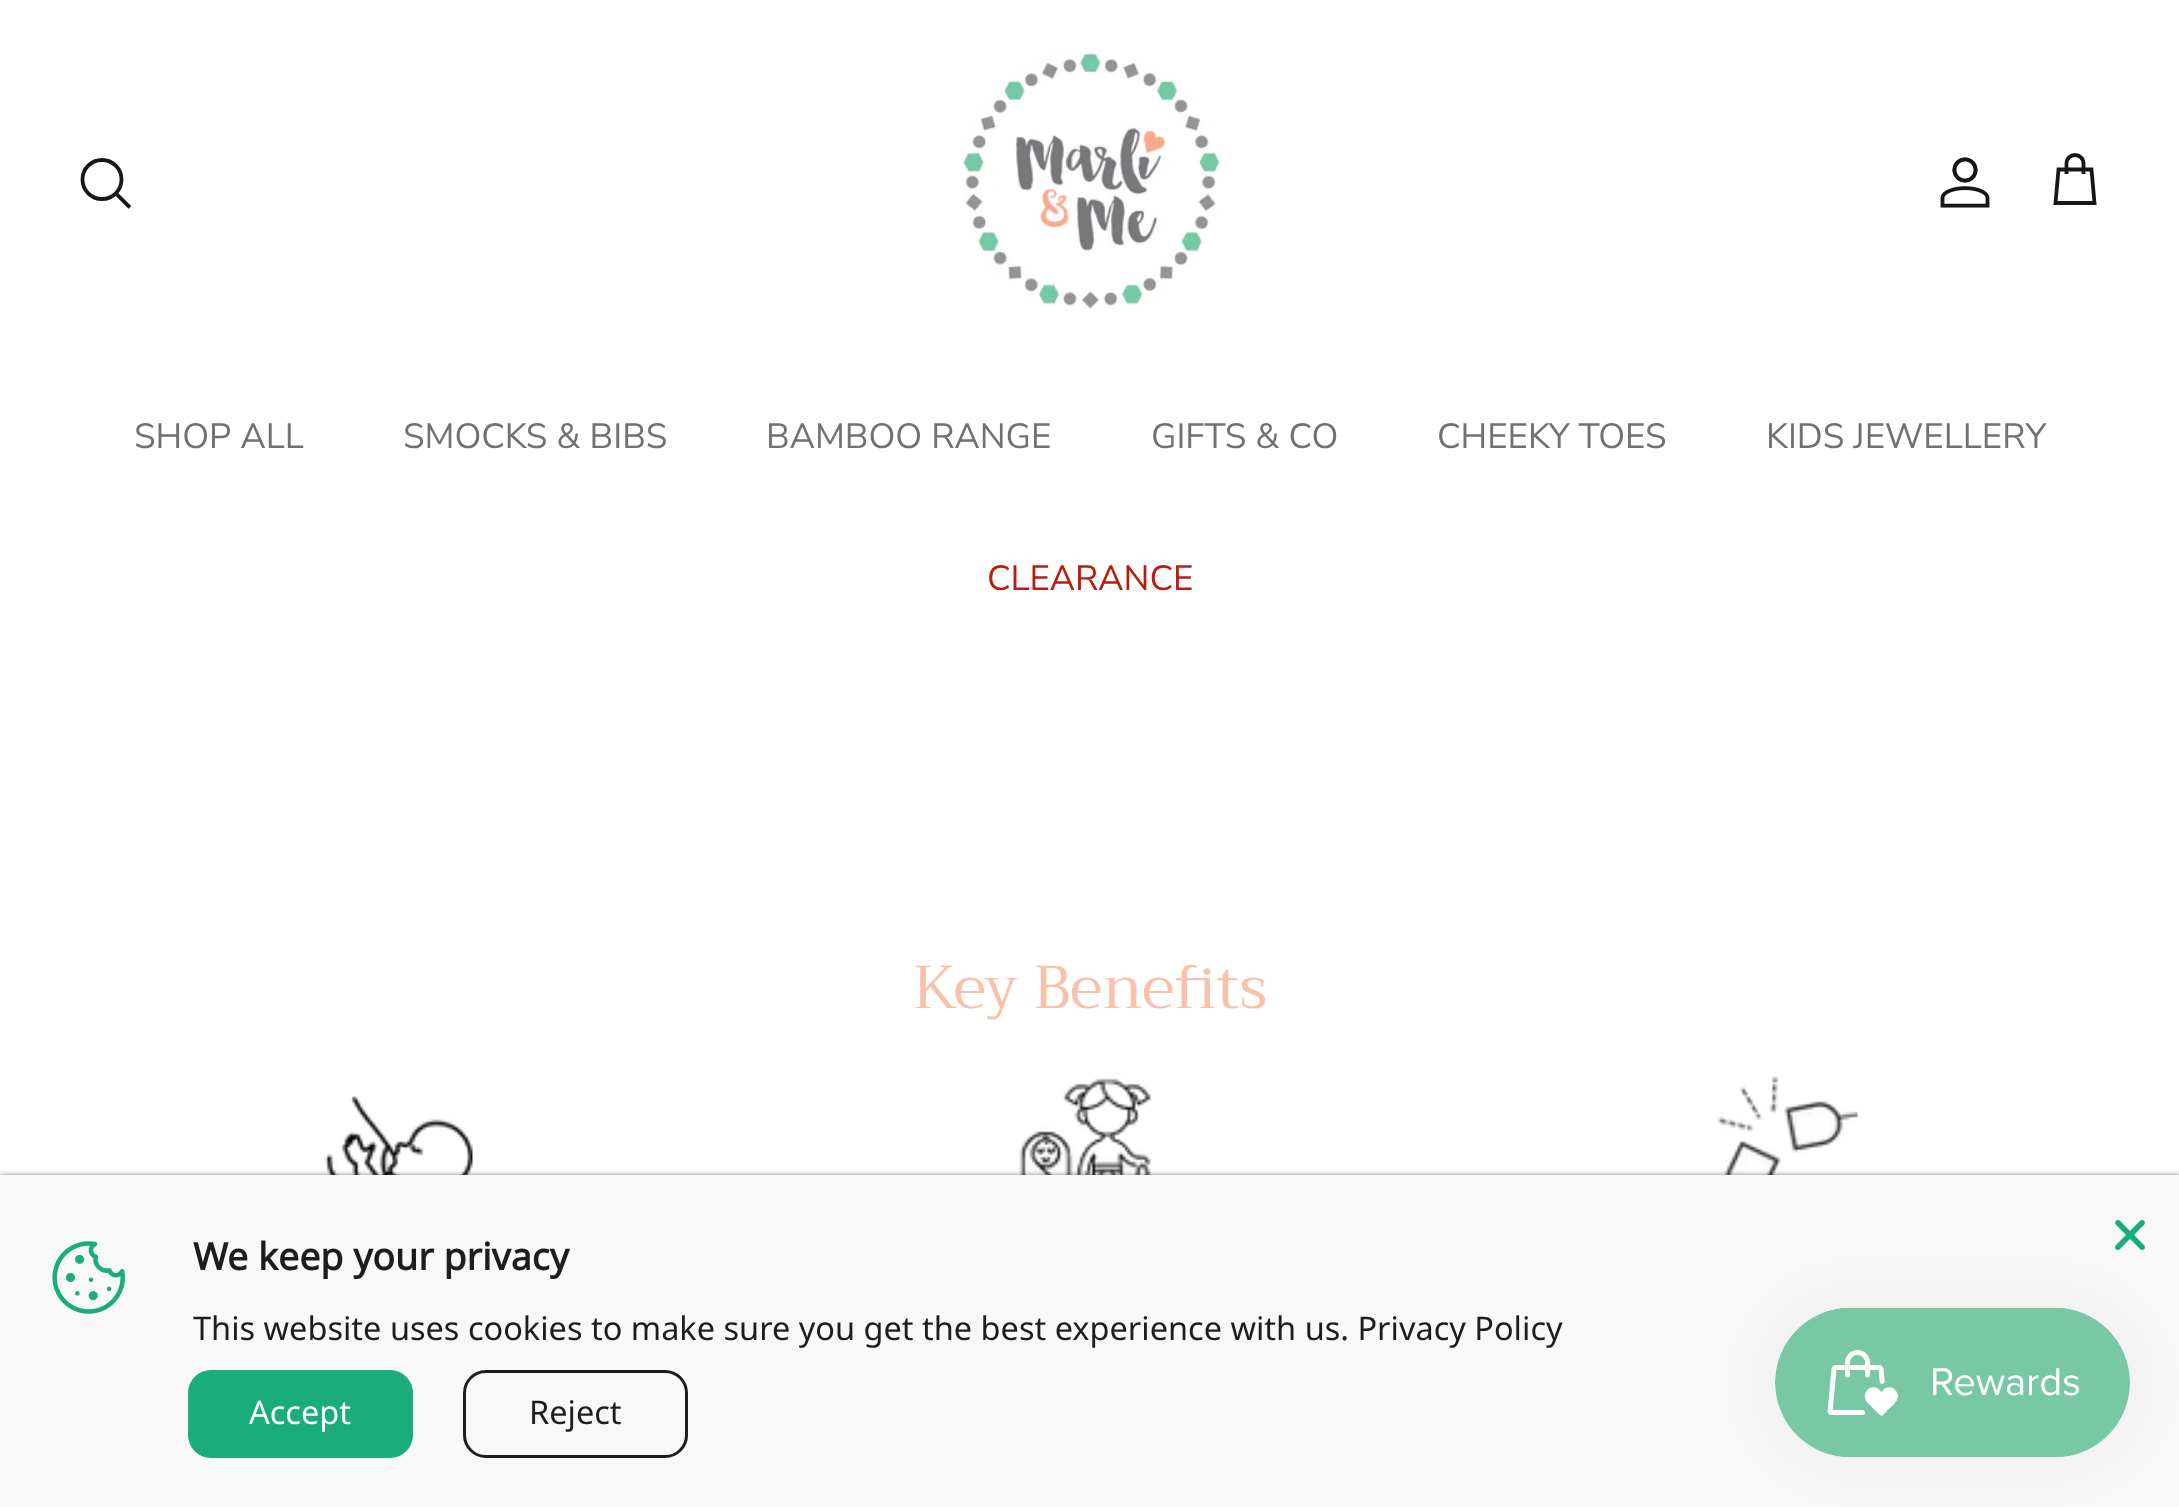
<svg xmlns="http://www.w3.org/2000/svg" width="2179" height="1507">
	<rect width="100%" height="100%" fill="#FFFFFF" />
	<circle cx="102" cy="179.5" r="19.5" fill="none" stroke="#171717" stroke-width="3.8" />
	<path d="M117.5 195L128.5 206" fill="none" stroke="#171717" stroke-width="3.8" stroke-linecap="square" />
	<image x="961" y="49" width="260" height="260" href="assets/img1.png" />
	<image x="1940" y="157" width="50" height="51" href="assets/img2.png" />
	<path d="M2083.5 174V163.5C2083.5 158.5 2079.5 155 2075 155C2070.5 155 2066.5 158.5 2066.5 163.5V174M2058.5 169.5H2091.5L2094.5 203H2055.5Z" fill="none" stroke="#171717" stroke-width="3.8" />
	<g font-family="Nunito Sans" font-size="35" fill="#707173">
		<text x="134" y="448">SHOP ALL</text>
		<text x="403" y="448">SMOCKS &amp; BIBS</text>
		<text x="766" y="448">BAMBOO RANGE</text>
		<text x="1151" y="448">GIFTS &amp; CO</text>
		<text x="1437" y="448">CHEEKY TOES</text>
		<text x="1766" y="448">KIDS JEWELLERY</text>
	</g>
	<text x="987" y="590" font-family="Nunito Sans" font-size="35" fill="#B61D0F">CLEARANCE</text>
	<text x="913" y="1008" font-family="Trirong" font-size="60.25" fill="#F9C1A9">Key Benefits</text>
	<image x="324" y="1096" width="149" height="79" href="assets/img3.png" />
	<image x="1019" y="1077" width="133" height="98" href="assets/img4.png" />
	<image x="1717" y="1076" width="141" height="99" href="assets/img5.png" />
	<rect x="0" y="1175" width="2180" height="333" fill="#000000" fill-opacity="0.5" filter="blur(2.5px)" />
	<rect x="0" y="1175" width="2179" height="332" fill="#F8F8F8" />
	<image x="2115" y="1220" width="30" height="30" href="assets/img6.png" />
	<image x="52" y="1241" width="73" height="73" href="assets/img7.png" />
	<text x="193" y="1270" font-family="Noto Sans" font-size="37.5" font-weight="700" fill="#1D1D1D">We keep your privacy</text>
	<text x="193" y="1340" font-family="Noto Sans" font-size="32.5" fill="#1D1D1D">This website uses cookies to make sure you get the best experience with us. Privacy Policy</text>
	<rect x="188" y="1370" width="225" height="88" rx="23" fill="#1AAC7A" />
	<text x="249" y="1424" font-family="Noto Sans" font-size="32.5" fill="#FFFFFF">Accept</text>
	<rect x="464.5" y="1371.5" width="222" height="85" rx="21.5" fill="none" stroke="#1D1D1D" stroke-width="3" />
	<text x="529" y="1424" font-family="Noto Sans" font-size="32.5" fill="#1D1D1D">Reject</text>
	<rect x="1775" y="1308" width="355" height="150" rx="75" fill="#000000" fill-opacity="0.05" filter="blur(31px)" />
	<image x="1775" y="1307" width="355" height="151" href="assets/img8.png" />
</svg>
